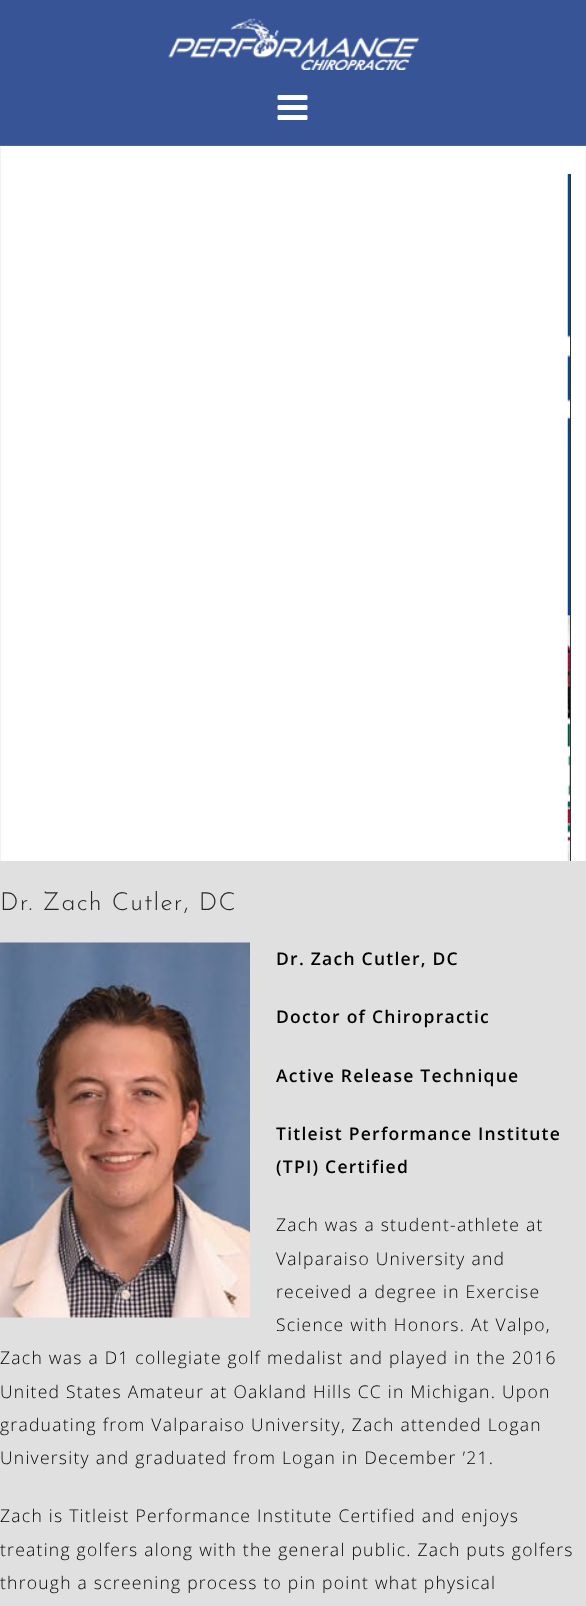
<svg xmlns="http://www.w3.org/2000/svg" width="586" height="1606">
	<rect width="100%" height="100%" fill="#FFFFFF" />
	<rect x="0" y="0" width="586" height="145" fill="#375496" />
	<rect x="585" y="145" width="1" height="1" fill="#365395" />
	<rect x="0" y="145" width="1" height="1" fill="#365395" />
	<rect x="0" y="145" width="586" height="1" fill="#4B65A0" />
	<image x="168" y="18" width="251" height="52" href="assets/img1.png" />
	<image x="277" y="95" width="31" height="25" href="assets/img2.png" />
	<rect x="585" y="146" width="1" height="715" fill="#F2F2F3" />
	<rect x="0" y="146" width="1" height="715" fill="#F2F2F3" />
	<rect x="570" y="174" width="1" height="687" fill="#333333" />
	<image x="567" y="173" width="3" height="688" href="assets/img3.png" />
	<rect x="0" y="861" width="586" height="745" fill="#E0E0E0" />
	<text x="0" y="910" font-family="Josefin Sans" font-size="25" font-weight="100" letter-spacing="1.25" fill="#272727">Dr. Zach Cutler, DC</text>
	<image x="0" y="942" width="250" height="376" href="assets/img4.png" />
	<g font-family="Open Sans" font-size="17.5" font-weight="600" letter-spacing="1.25" fill="#000000">
		<text x="276" y="965">Dr. Zach Cutler, DC</text>
		<text x="276" y="1023">Doctor of Chiropractic</text>
		<text x="276" y="1082">Active Release Technique</text>
		<text x="276" y="1140">Titleist Performance Institute</text>
		<text x="276" y="1173">(TPI) Certified</text>
	</g>
	<g font-family="Open Sans" font-size="17.5" font-weight="300" letter-spacing="1.25" fill="#000000">
		<text x="276" y="1231">Zach was a student-athlete at</text>
		<text x="276" y="1265">Valparaiso University and</text>
		<text x="276" y="1298">received a degree in Exercise</text>
		<text x="276" y="1331">Science with Honors. At Valpo,</text>
		<text x="0" y="1364">Zach was a D1 collegiate golf medalist and played in the 2016</text>
		<text x="0" y="1398">United States Amateur at Oakland Hills CC in Michigan. Upon</text>
		<text x="0" y="1431">graduating from Valparaiso University, Zach attended Logan</text>
		<text x="0" y="1464">University and graduated from Logan in December ’21.</text>
		<text x="0" y="1522">Zach is Titleist Performance Institute Certified and enjoys</text>
		<text x="0" y="1556">treating golfers along with the general public. Zach puts golfers</text>
		<text x="0" y="1589">through a screening process to pin point what physical</text>
	</g>
</svg>
